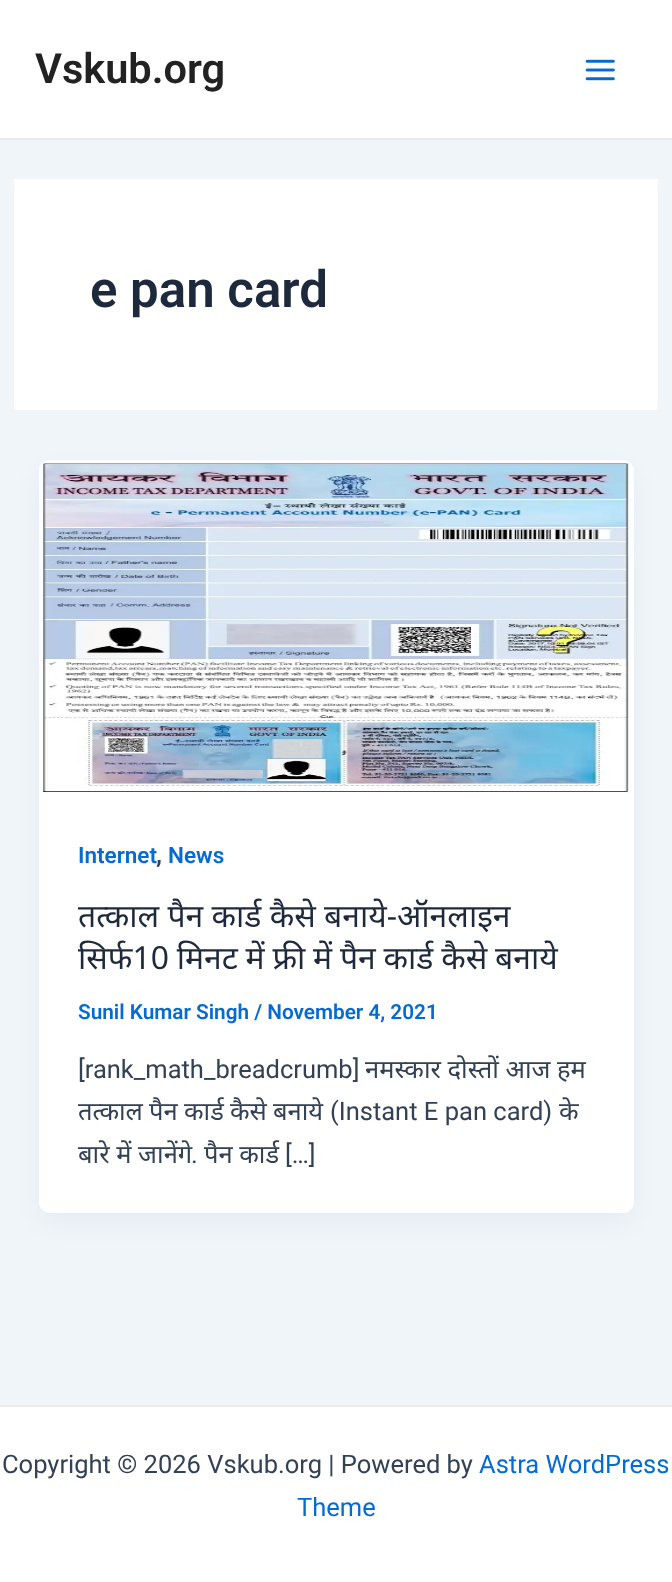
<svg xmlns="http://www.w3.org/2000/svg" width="672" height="1582">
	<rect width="100%" height="100%" fill="#F0F5FA" />
	<rect x="0" y="0" width="672" height="138" fill="#FFFFFF" />
	<rect x="0" y="138" width="672" height="2" fill="#EAEAEA" />
	<text x="35" y="83" font-family="Roboto" font-size="41.5" font-weight="600" fill="#222222">Vskub.org</text>
	<image x="585" y="59" width="30" height="22" href="assets/img1.png" />
	<rect x="14" y="179" width="644" height="231" fill="#FFFFFF" />
	<text x="90" y="307" font-family="Roboto" font-size="51" font-weight="600" fill="#1E293B">e pan card</text>
	<rect x="42" y="474" width="588" height="746" rx="7" fill="#101828" fill-opacity="0.05" filter="blur(13px)" />
	<rect x="39" y="460" width="595" height="753" rx="11" fill="#FFFFFF" />
	<image x="39" y="462" width="594" height="331" href="assets/img2.png" />
	<text x="78" y="863" font-family="Roboto" font-size="22.5" font-weight="600" fill="#046BD2">Internet</text>
	<text x="156" y="863" font-family="Roboto" font-size="25.5" font-weight="600" fill="#334155">,</text>
	<text x="168" y="863" font-family="Roboto" font-size="22.5" font-weight="600" fill="#046BD2">News</text>
	<g font-family="Noto Sans" font-size="31.9" fill="#1E293B">
		<text x="78" y="927">तत्काल पैन कार्ड कैसे बनाये-ऑनलाइन</text>
		<text x="78" y="969" word-spacing="-0.5">सिर्फ10 मिनट में फ्री में पैन कार्ड कैसे बनाये</text>
	</g>
	<text x="78" y="1019" font-family="Roboto" font-size="20.75" font-weight="600" fill="#046BD2">Sunil Kumar Singh / November 4, 2021</text>
	<text x="78" y="1078" font-family="Roboto" font-size="25.5" fill="#334155">[rank_math_breadcrumb]</text>
	<g font-family="Noto Sans" font-size="25.5" fill="#334155">
		<text x="365" y="1078">नमस्कार दोस्तों आज हम</text>
		<text x="78" y="1120">तत्काल</text>
		<text x="149" y="1120">पैन</text>
		<text x="184" y="1120">कार्ड</text>
		<text x="230" y="1120">कैसे</text>
		<text x="273" y="1120">बनाये</text>
	</g>
	<text x="330" y="1120" font-family="Roboto" font-size="25.5" fill="#334155">(Instant E pan card)</text>
	<g font-family="Noto Sans" font-size="25.5" fill="#334155">
		<text x="559" y="1120">के</text>
		<text x="78" y="1163">बारे में जानेंगे</text>
	</g>
	<text x="191" y="1163" font-family="Roboto" font-size="25.5" fill="#334155">.</text>
	<text x="204" y="1163" font-family="Noto Sans" font-size="25.5" fill="#334155">पैन कार्ड</text>
	<text x="285" y="1163" font-family="Roboto" font-size="25.5" fill="#334155">[…]</text>
	<rect x="0" y="1407" width="672" height="175" fill="#FFFFFF" />
	<rect x="0" y="1405" width="672" height="2" fill="#EAEAEA" />
	<text x="2" y="1473" font-family="Roboto" font-size="25.5" fill="#334155">Copyright © 2026 Vskub.org | Powered by</text>
	<g font-family="Roboto" font-size="25.5" fill="#046BD2">
		<text x="479" y="1473">Astra WordPress</text>
		<text x="297" y="1516">Theme</text>
	</g>
</svg>
